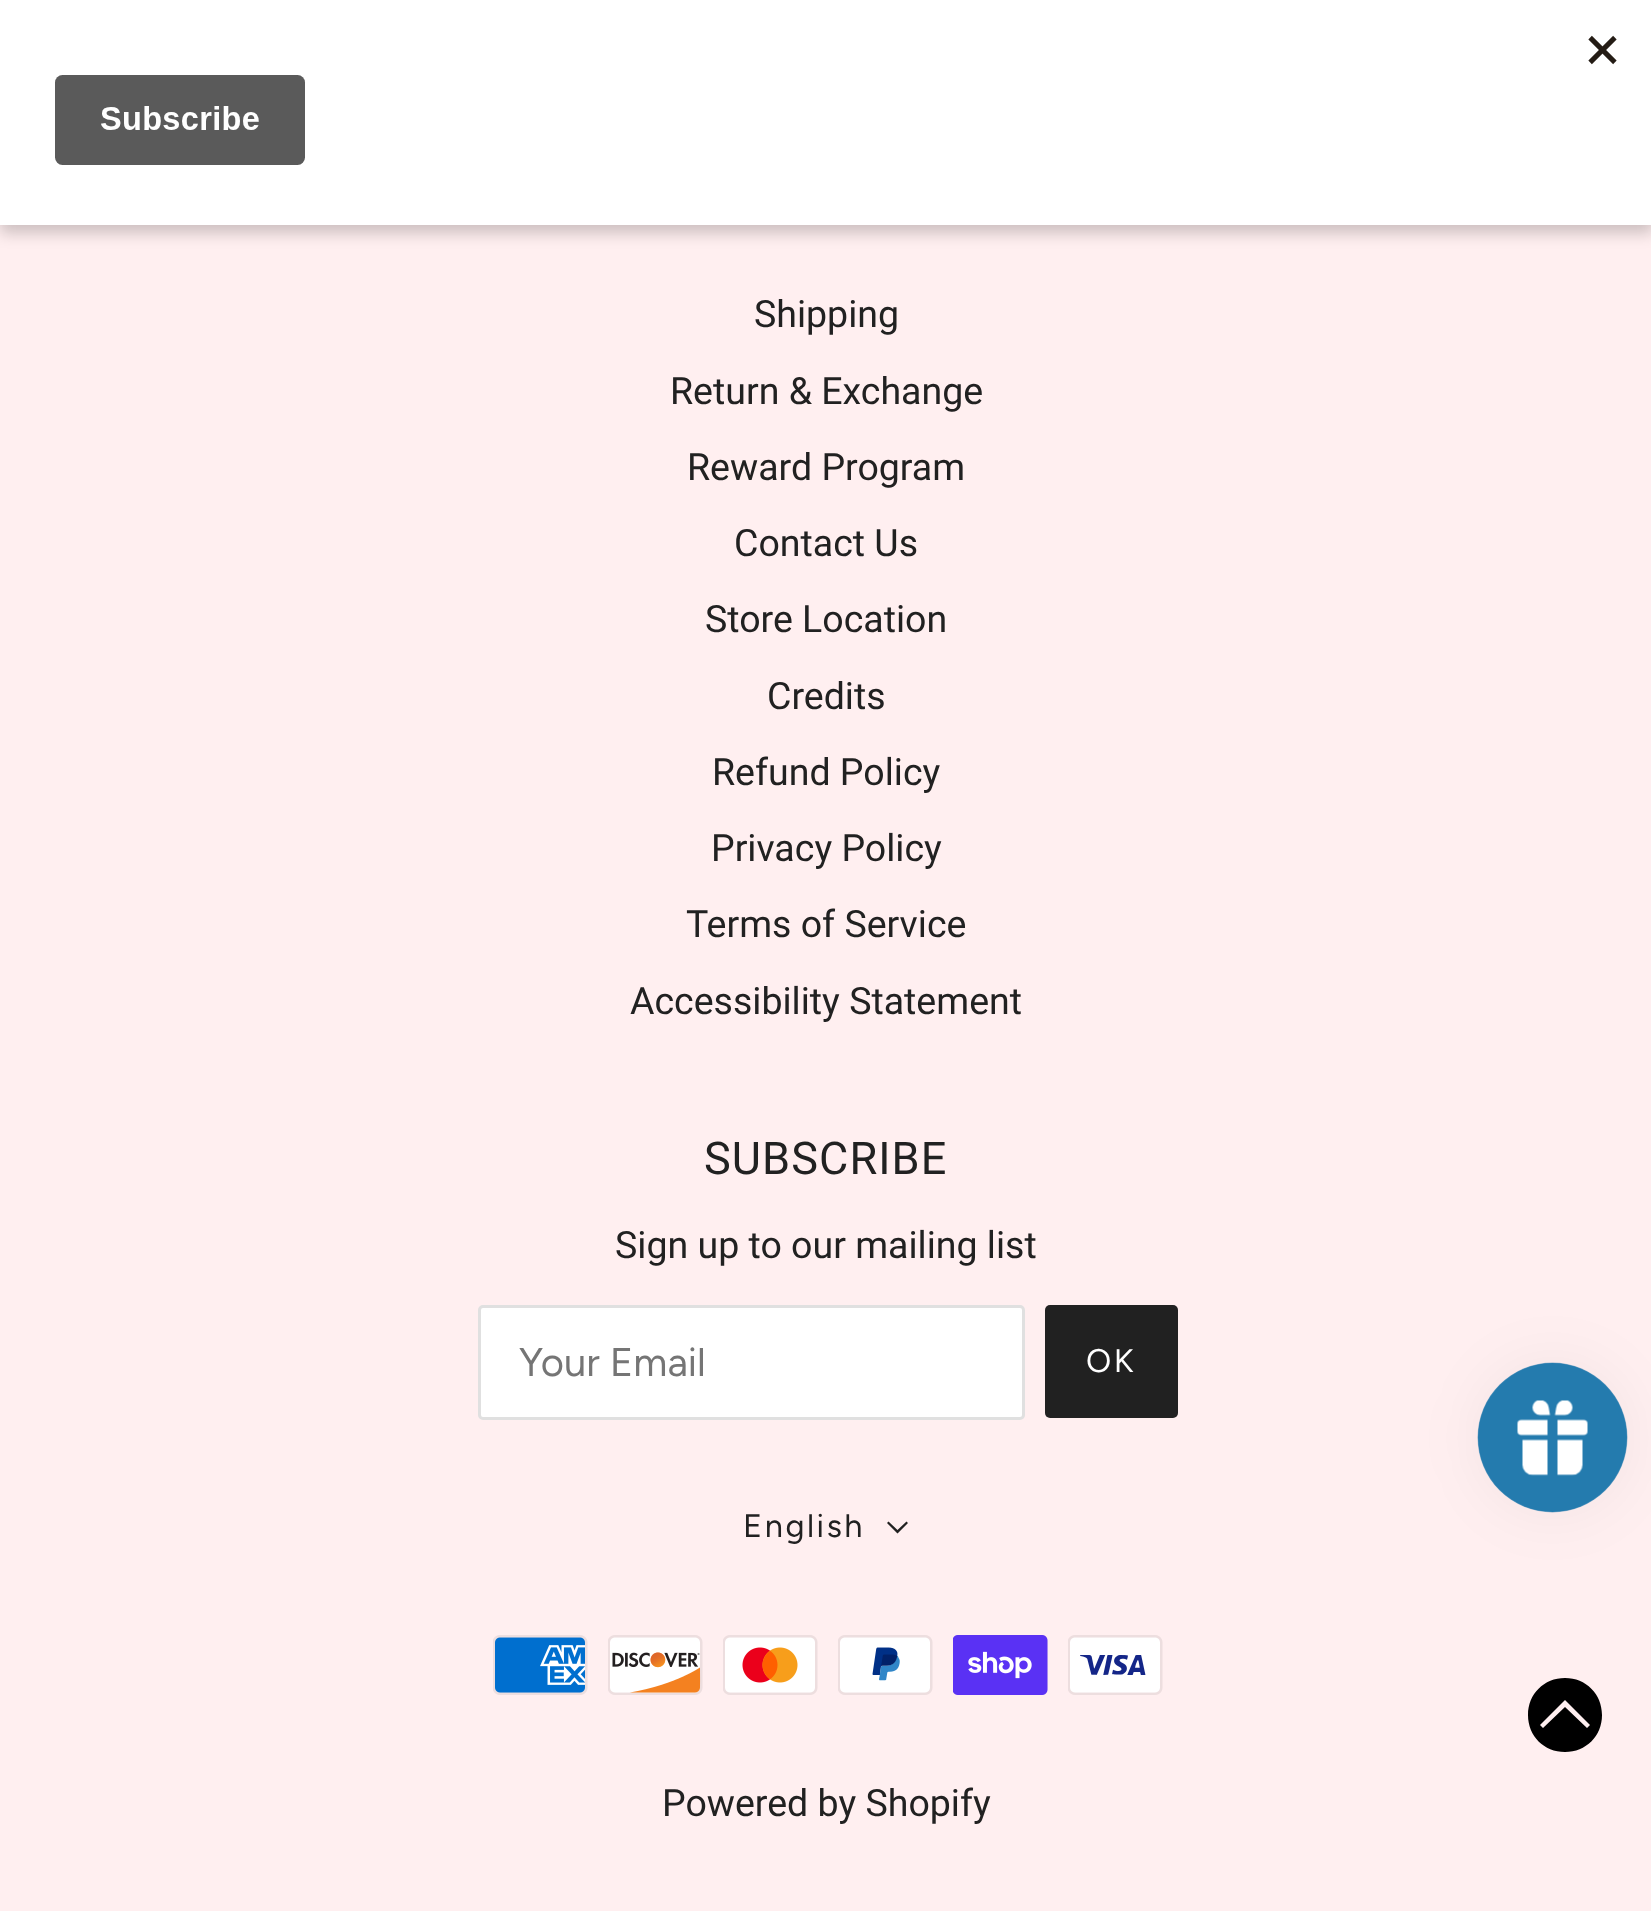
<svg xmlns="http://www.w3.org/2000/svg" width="1651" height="1911">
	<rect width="100%" height="100%" fill="#FFEFF0" />
	<rect x="0" y="8" width="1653" height="225" fill="#000000" fill-opacity="0.2" filter="blur(7.5px)" />
	<rect x="0" y="0" width="1651" height="225" fill="#FFFFFF" />
	<image x="55" y="35" width="1562" height="130" href="assets/img1.png" />
	<g font-family="Roboto" font-size="37.5" fill="#212121">
		<text x="754" y="327">Shipping</text>
		<text x="670" y="404">Return &amp; Exchange</text>
		<text x="687" y="480">Reward Program</text>
		<text x="734" y="556">Contact Us</text>
		<text x="705" y="632">Store Location</text>
		<text x="767" y="709">Credits</text>
		<text x="712" y="785">Refund Policy</text>
		<text x="711" y="861">Privacy Policy</text>
		<text x="686" y="937">Terms of Service</text>
		<text x="630" y="1014">Accessibility Statement</text>
	</g>
	<text x="704" y="1174" font-family="Roboto" font-size="45" letter-spacing="1.1" fill="#212121">SUBSCRIBE</text>
	<text x="615" y="1258" font-family="Roboto" font-size="37.5" fill="#212121">Sign up to our mailing list</text>
	<rect x="479.5" y="1306.5" width="544" height="112" rx="3.5" fill="#FFFFFF" stroke="#E0E0E0" stroke-width="3" />
	<text x="519" y="1376" font-family="Figtree" font-size="40" fill="#757575">Your Email</text>
	<rect x="1045" y="1305" width="133" height="113" rx="5" fill="#212121" />
	<text x="1086" y="1372" font-family="Figtree" font-size="32.5" letter-spacing="2.5" fill="#FFFFFF">OK</text>
	<text x="743" y="1537" font-family="Figtree" font-size="32.5" letter-spacing="2.5" fill="#212121">English</text>
	<path d="M897.5 1530L906.5 1521.5L908 1523L897.5 1533.5L887 1523L888.5 1521.5Z" fill="#212121" />
	<image x="493" y="1635" width="95" height="60" href="assets/img2.png" />
	<image x="608" y="1635" width="95" height="60" href="assets/img3.png" />
	<image x="723" y="1635" width="95" height="60" href="assets/img4.png" />
	<image x="838" y="1635" width="95" height="60" href="assets/img5.png" />
	<image x="953" y="1635" width="95" height="60" href="assets/img6.png" />
	<image x="1068" y="1635" width="95" height="60" href="assets/img7.png" />
	<text x="662" y="1816" font-family="Roboto" font-size="37.5" fill="#212121">Powered by Shopify</text>
	<rect x="1478" y="1363" width="150" height="150" rx="75" fill="#000000" fill-opacity="0.05" filter="blur(31px)" />
	<image x="1477" y="1362" width="151" height="151" href="assets/img8.png" />
	<path d="M1565 1678C1544 1678 1528 1694 1528 1715C1528 1736 1544 1752 1565 1752C1586 1752 1602 1736 1602 1715C1602 1694 1586 1678 1565 1678ZM1587 1728L1565 1707L1543 1728L1540 1725L1565 1700L1590 1725Z" fill="#000000" fill-rule="evenodd" />
</svg>
